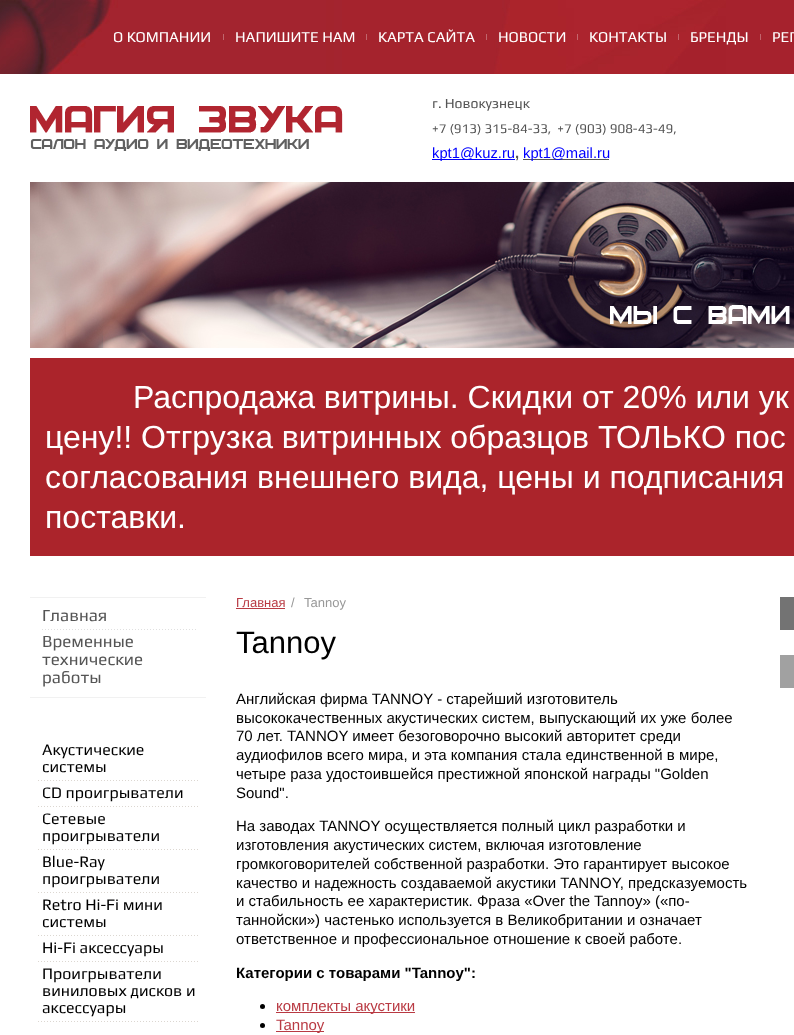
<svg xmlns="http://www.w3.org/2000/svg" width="794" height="1035">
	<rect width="100%" height="100%" fill="#FFFFFF" />
	<image x="0" y="0" width="794" height="74" href="assets/img1.png" />
	<text x="113" y="42" font-family="Play" font-size="15" fill="#FFFFFF">О КОМПАНИИ</text>
	<rect x="223" y="34" width="1" height="6" fill="#BF666D" />
	<text x="235" y="42" font-family="Play" font-size="15" fill="#FFFFFF">НАПИШИТЕ НАМ</text>
	<rect x="366" y="34" width="1" height="6" fill="#C0656C" />
	<text x="378" y="42" font-family="Play" font-size="15" fill="#FFFFFF">КАРТА САЙТА</text>
	<rect x="486" y="34" width="1" height="6" fill="#C0656C" />
	<text x="498" y="42" font-family="Play" font-size="15" fill="#FFFFFF">НОВОСТИ</text>
	<rect x="577" y="34" width="1" height="6" fill="#C5666D" />
	<text x="589" y="42" font-family="Play" font-size="15" fill="#FFFFFF">КОНТАКТЫ</text>
	<rect x="678" y="34" width="1" height="6" fill="#C4666C" />
	<text x="690" y="42" font-family="Play" font-size="15" fill="#FFFFFF">БРЕНДЫ</text>
	<rect x="760" y="34" width="1" height="6" fill="#C1646C" />
	<text x="772" y="42" font-family="Play" font-size="15" fill="#FFFFFF">РЕГ</text>
	<image x="30" y="106" width="313" height="45" href="assets/img2.png" />
	<text x="432" y="108" font-family="Play" font-size="14" fill="#555555">г. Новокузнецк</text>
	<text x="432" y="133" font-family="Play" font-size="13.3" fill="#555555" xml:space="preserve">+7 (913) 315-84-33,  +7 (903) 908-43-49,</text>
	<rect x="432" y="159" width="83" height="1" fill="#0000FF" />
	<text x="432" y="158" font-family="Liberation Sans" font-size="14.75" fill="#0000FF">kpt1@kuz.ru</text>
	<text x="515" y="158" font-family="Liberation Sans" font-size="14.75" font-weight="700" fill="#555555">,</text>
	<rect x="523" y="159" width="86" height="1" fill="#555555" />
	<text x="523" y="158" font-family="Liberation Sans" font-size="14.75" fill="#0000FF">kpt1@mail.ru</text>
	<image x="30" y="182" width="764" height="166" href="assets/img3.png" />
	<image x="610" y="305" width="180" height="19" href="assets/img4.png" />
	<rect x="30" y="358" width="764" height="198" fill="#AB242B" />
	<g font-family="Liberation Sans" font-size="32" fill="#FFFFFF">
		<text x="133" y="408">Распродажа витрины. Скидки от 20% или ук</text>
		<text x="45" y="448">цену!! Отгрузка витринных образцов ТОЛЬКО пос</text>
		<text x="45" y="488">согласования внешнего вида, цены и подписания</text>
		<text x="45" y="528">поставки.</text>
	</g>
	<rect x="30" y="597" width="176" height="1" fill="#F1F1F1" />
	<rect x="30" y="697" width="176" height="1" fill="#F1F1F1" />
	<text x="42" y="621" font-family="Play" font-size="17" fill="#555555">Главная</text>
	<image x="42" y="629" width="154" height="1" href="assets/img5.png" />
	<g font-family="Play" font-size="17" fill="#555555">
		<text x="42" y="647">Временные</text>
		<text x="42" y="665">технические</text>
		<text x="42" y="683">работы</text>
	</g>
	<g font-family="Play" font-size="16" fill="#000000">
		<text x="42" y="755">Акустические</text>
		<text x="42" y="772">системы</text>
	</g>
	<image x="38" y="780" width="160" height="1" href="assets/img6.png" />
	<text x="42" y="798" font-family="Play" font-size="16" fill="#000000">CD проигрыватели</text>
	<image x="38" y="806" width="160" height="1" href="assets/img6.png" />
	<g font-family="Play" font-size="16" fill="#000000">
		<text x="42" y="824">Сетевые</text>
		<text x="42" y="841">проигрыватели</text>
	</g>
	<image x="38" y="849" width="160" height="1" href="assets/img6.png" />
	<g font-family="Play" font-size="16" fill="#000000">
		<text x="42" y="867">Blue-Ray</text>
		<text x="42" y="884">проигрыватели</text>
	</g>
	<image x="38" y="892" width="160" height="1" href="assets/img6.png" />
	<g font-family="Play" font-size="16" fill="#000000">
		<text x="42" y="910">Retro Hi-Fi мини</text>
		<text x="42" y="927">системы</text>
	</g>
	<image x="38" y="935" width="160" height="1" href="assets/img6.png" />
	<text x="42" y="953" font-family="Play" font-size="16" fill="#000000">Hi-Fi аксессуары</text>
	<image x="38" y="961" width="160" height="1" href="assets/img6.png" />
	<g font-family="Play" font-size="16" fill="#000000">
		<text x="42" y="979">Проигрыватели</text>
		<text x="42" y="996">виниловых дисков и</text>
		<text x="42" y="1013">аксессуары</text>
	</g>
	<image x="38" y="1021" width="160" height="1" href="assets/img6.png" />
	<text x="236" y="607" font-family="Liberation Sans" font-size="13" fill="#B93A43">Главная</text>
	<rect x="236" y="608" width="49" height="1" fill="#B93A43" />
	<g font-family="Liberation Sans" font-size="13" fill="#989898">
		<text x="291" y="607">/</text>
		<text x="304" y="607">Tannoy</text>
	</g>
	<text x="236" y="653" font-family="Liberation Sans" font-size="31" fill="#000000">Tannoy</text>
	<g font-family="Liberation Sans" font-size="15" fill="#000000">
		<text x="236" y="704">Английская фирма TANNOY - старейший изготовитель</text>
		<text x="236" y="723">высококачественных акустических систем, выпускающий их уже более</text>
		<text x="236" y="741">70 лет. TANNOY имеет безоговорочно высокий авторитет среди</text>
		<text x="236" y="760">аудиофилов всего мира, и эта компания стала единственной в мире,</text>
		<text x="236" y="779">четыре раза удостоившейся престижной японской награды "Golden</text>
		<text x="236" y="798">Sound".</text>
		<text x="236" y="831">На заводах TANNOY осуществляется полный цикл разработки и</text>
		<text x="236" y="850">изготовления акустических систем, включая изготовление</text>
		<text x="236" y="869">громкоговорителей собственной разработки. Это гарантирует высокое</text>
		<text x="236" y="888">качество и надежность создаваемой акустики TANNOY, предсказуемость</text>
		<text x="236" y="906">и стабильность ее характеристик. Фраза «Over the Tannoy» («по-</text>
		<text x="236" y="925">таннойски») частенько используется в Великобритании и означает</text>
		<text x="236" y="944">ответственное и профессиональное отношение к своей работе.</text>
	</g>
	<text x="236" y="978" font-family="Liberation Sans" font-size="15" font-weight="700" fill="#000000">Категории с товарами "Tannoy":</text>
	<circle cx="262.5" cy="1006.5" r="2.5" fill="#000000" />
	<rect x="276" y="1012" width="139" height="1" fill="#B93A43" />
	<text x="276" y="1011" font-family="Liberation Sans" font-size="15" fill="#B93A43">комплекты акустики</text>
	<circle cx="262.5" cy="1025.5" r="2.5" fill="#000000" />
	<rect x="276" y="1031" width="48" height="1" fill="#B93A43" />
	<text x="276" y="1030" font-family="Liberation Sans" font-size="15" fill="#B93A43">Tannoy</text>
	<rect x="780" y="597" width="14" height="33" fill="#737373" />
	<rect x="780" y="655" width="14" height="33" fill="#A1A1A1" />
</svg>
